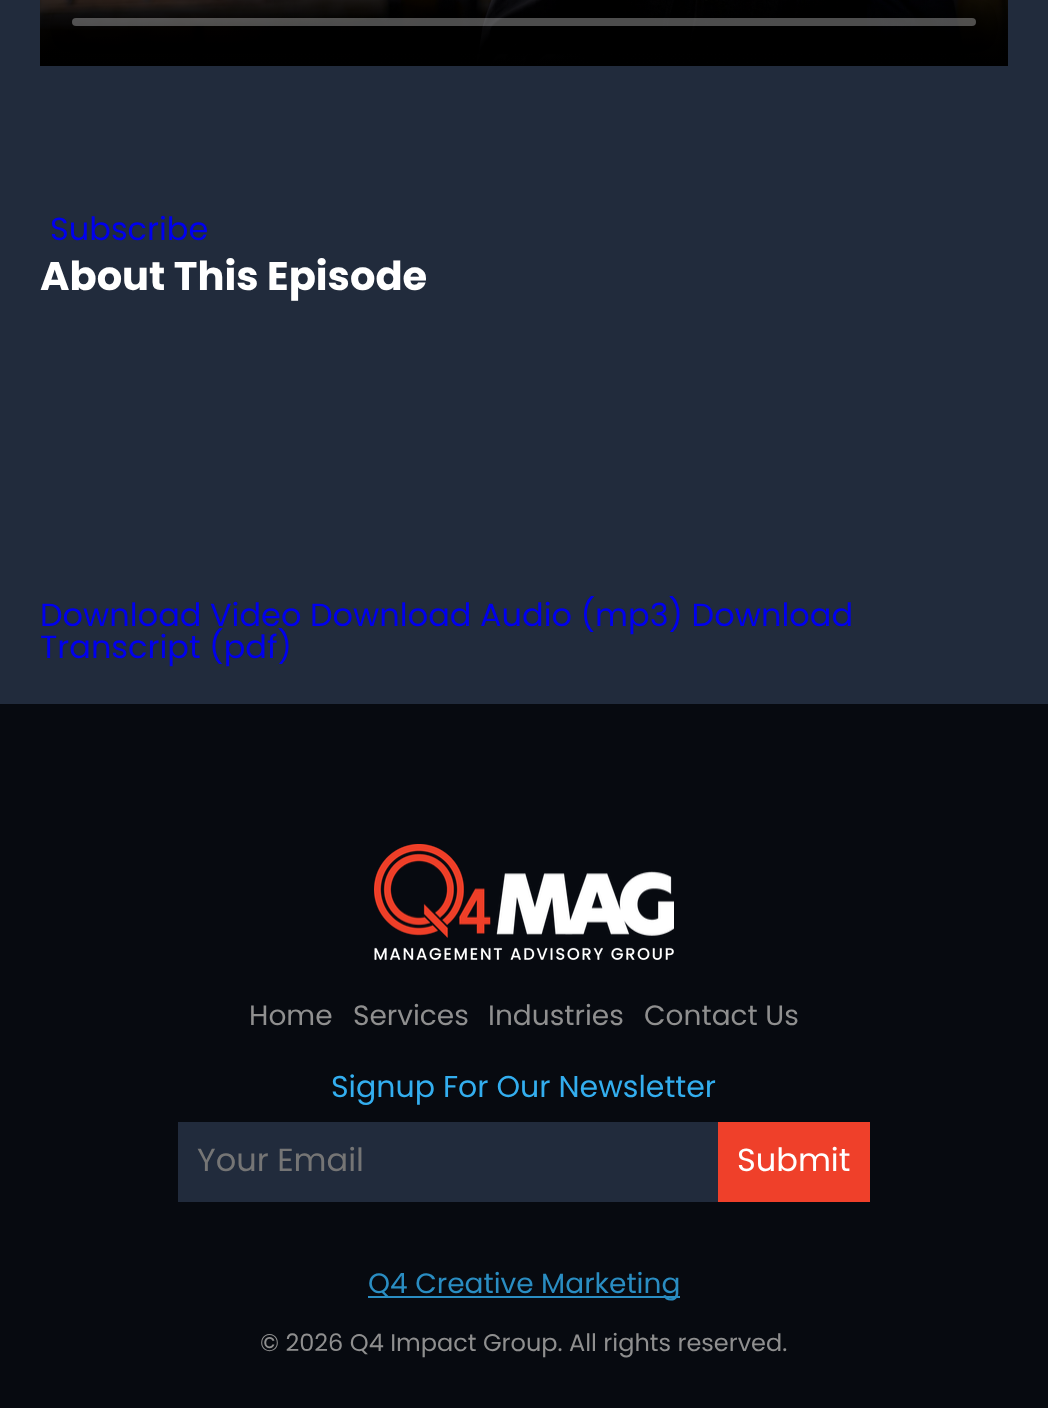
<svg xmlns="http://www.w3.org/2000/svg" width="1048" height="1408">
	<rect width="100%" height="100%" fill="#070A10" />
	<rect x="0" y="0" width="1048" height="704" fill="#212B3C" />
	<image x="40" y="0" width="968" height="66" href="assets/img1.png" />
	<text x="50" y="240" font-family="Poppins" font-size="32" fill="#0000EE">Subscribe</text>
	<text x="40" y="290" font-family="Poppins" font-size="40" font-weight="700" fill="#FFFFFF">About This Episode</text>
	<g font-family="Poppins" font-size="32" fill="#0000EE">
		<text x="40" y="626">Download Video Download Audio (mp3) Download</text>
		<text x="40" y="658">Transcript (pdf)</text>
	</g>
	<image x="374" y="844" width="300" height="116" href="assets/img2.png" />
	<g font-family="Poppins" font-size="28" fill="#8F8F8F">
		<text x="249" y="1025">Home</text>
		<text x="353" y="1025">Services</text>
		<text x="488" y="1025">Industries</text>
		<text x="644" y="1025">Contact Us</text>
	</g>
	<text x="331" y="1097" font-family="Poppins" font-size="30" fill="#33AEEF">Signup For Our Newsletter</text>
	<rect x="178" y="1122" width="540" height="80" fill="#212B3C" />
	<text x="197" y="1171" font-family="Poppins" font-size="32" fill="#757575">Your Email</text>
	<rect x="718" y="1122" width="152" height="80" fill="#EF402A" />
	<text x="737" y="1171" font-family="Poppins" font-size="32" fill="#FFFFFF">Submit</text>
	<rect x="368" y="1296" width="312" height="2" fill="#2A8DC2" />
	<text x="368" y="1293" font-family="Poppins" font-size="28" fill="#2A8DC2">Q4 Creative Marketing</text>
	<text x="260" y="1351" font-family="Poppins" font-size="24" fill="#8F8F8F">© 2026 Q4 Impact Group. All rights reserved.</text>
</svg>
